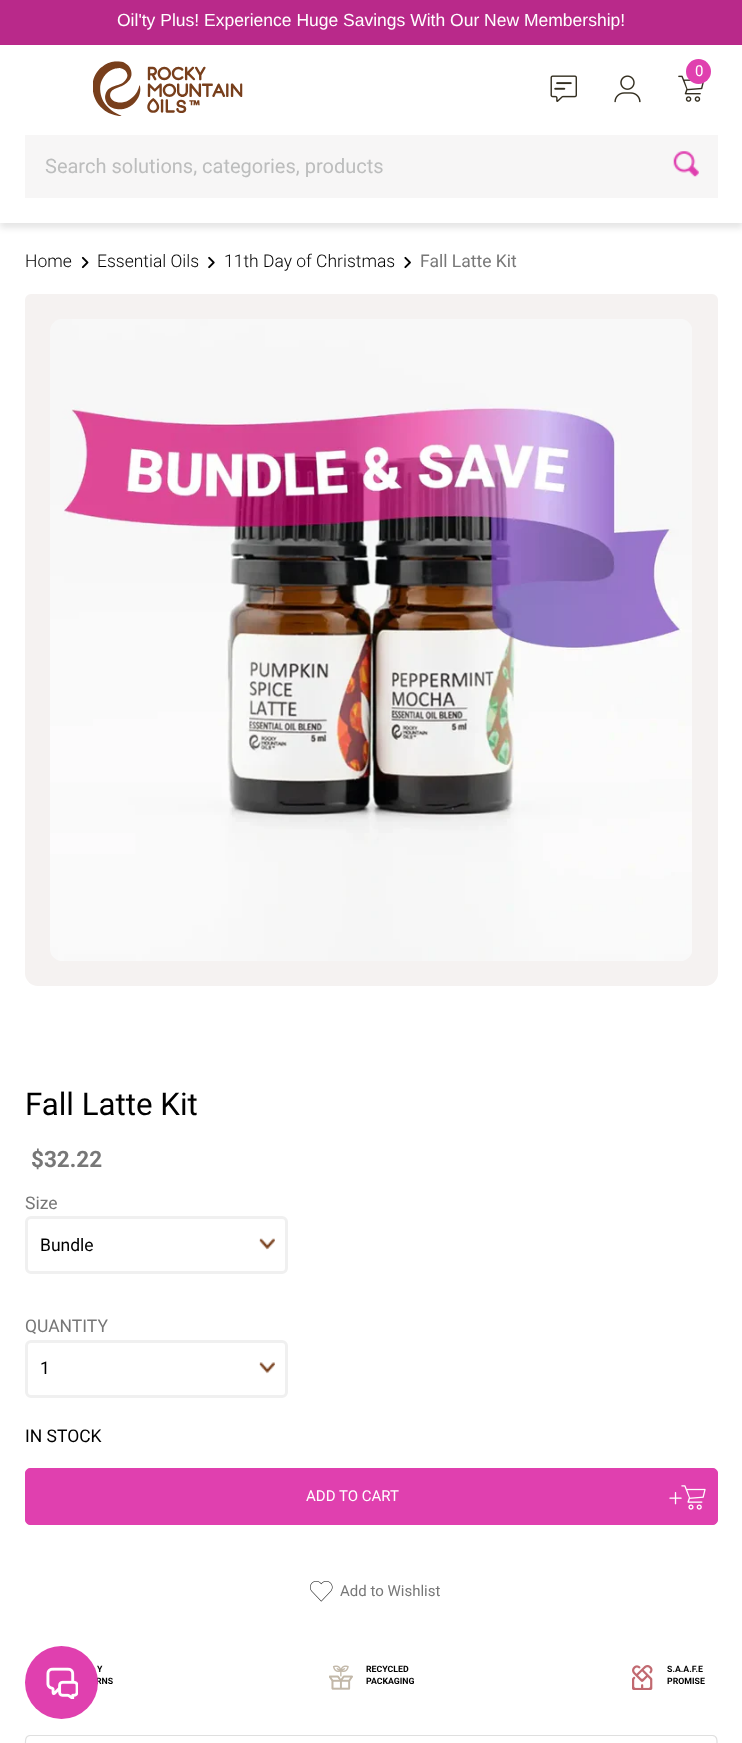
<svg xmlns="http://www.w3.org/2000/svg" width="742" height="1743">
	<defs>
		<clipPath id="clip1"><path d="M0 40H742V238H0ZM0 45H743V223H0Z" clip-rule="evenodd" /></clipPath>
	</defs>
	<rect width="100%" height="100%" fill="#FFFFFF" />
	<rect x="0" y="0" width="742" height="45" fill="#B9298A" />
	<text x="117" y="26" font-family="Liberation Sans" font-size="17.5" fill="#FFFFFF">Oil'ty Plus! Experience Huge Savings With Our New Membership!</text>
	<g clip-path="url(#clip1)">
		<rect x="0" y="50" width="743" height="178" fill="#000000" fill-opacity="0.1" filter="blur(3px)" />
	</g>
	<rect x="25" y="222" width="693" height="1" fill="#FFFFFF" />
	<image x="93" y="61" width="150" height="55" href="assets/img1.png" />
	<image x="678" y="75" width="26" height="27" href="assets/img2.png" />
	<circle cx="698.5" cy="71.5" r="12.5" fill="#E040AF" />
	<text x="695" y="76" font-family="Roboto" font-size="15" fill="#FFFFFF">0</text>
	<image x="550" y="75" width="27" height="27" href="assets/img3.png" />
	<image x="614" y="75" width="27" height="28" href="assets/img4.png" />
	<rect x="25" y="135" width="693" height="63" fill="#F7F6F6" />
	<text x="45" y="173" font-family="Roboto" font-size="20" fill="#BCBDBD">Search solutions, categories, products</text>
	<image x="673" y="151" width="26" height="26" href="assets/img5.png" />
	<text x="25" y="267" font-family="Roboto" font-size="17.5" font-weight="300" fill="#000000">Home</text>
	<image x="81" y="256" width="8" height="13" href="assets/img6.png" />
	<text x="97" y="267" font-family="Roboto" font-size="17.5" font-weight="300" fill="#000000">Essential Oils</text>
	<image x="208" y="256" width="7" height="13" href="assets/img7.png" />
	<text x="224" y="267" font-family="Roboto" font-size="17.5" font-weight="300" fill="#000000">11th Day of Christmas</text>
	<image x="404" y="256" width="7" height="13" href="assets/img8.png" />
	<text x="420" y="267" font-family="Roboto" font-size="17.5" fill="#777777">Fall Latte Kit</text>
	<rect x="25" y="294" width="693" height="462" rx="6" fill="#F5F2F1" />
	<rect x="25" y="294" width="693" height="692" rx="13" fill="#F5F2F1" />
	<image x="50" y="319" width="642" height="642" href="assets/img9.png" />
	<text x="25" y="1115" font-family="Roboto" font-size="31.25" fill="#000000">Fall Latte Kit</text>
	<text x="31" y="1167" font-family="Roboto" font-size="22.5" font-weight="700" fill="#777777">$32.22</text>
	<text x="25" y="1209" font-family="Roboto" font-size="17.5" fill="#777777">Size</text>
	<image x="259" y="1238" width="16" height="12" href="assets/img10.png" />
	<rect x="26.5" y="1217.5" width="260" height="55" rx="4.5" fill="none" stroke="#F0F0F0" stroke-width="3" />
	<text x="40" y="1251" font-family="Roboto" font-size="17.5" fill="#000000">Bundle</text>
	<text x="25" y="1332" font-family="Roboto" font-size="17.5" fill="#777777">QUANTITY</text>
	<image x="259" y="1362" width="16" height="12" href="assets/img11.png" />
	<rect x="26.5" y="1341.5" width="260" height="55" rx="4.5" fill="none" stroke="#F0F0F0" stroke-width="3" />
	<g font-family="Roboto" font-size="17.5" fill="#000000">
		<text x="40" y="1374">1</text>
		<text x="25" y="1442">IN STOCK</text>
	</g>
	<rect x="25.5" y="1468.5" width="692" height="56" rx="4.5" fill="#E040AF" stroke="#E040AF" />
	<text x="306" y="1501" font-family="Roboto" font-size="15" fill="#FFFFFF">ADD TO CART</text>
	<image x="669" y="1485" width="37" height="25" href="assets/img12.png" />
	<image x="310" y="1581" width="23" height="21" href="assets/img13.png" />
	<text x="340" y="1596" font-family="Roboto" font-size="15" fill="#777777">Add to Wishlist</text>
	<g font-family="Roboto" font-size="8.75" font-weight="700" fill="#000000">
		<text x="97" y="1672">Y</text>
		<text x="96" y="1684">RNS</text>
	</g>
	<image x="329" y="1665" width="24" height="25" href="assets/img14.png" />
	<g font-family="Roboto" font-size="8.75" font-weight="700" fill="#000000">
		<text x="366" y="1672">RECYCLED</text>
		<text x="366" y="1684">PACKAGING</text>
	</g>
	<image x="632" y="1665" width="21" height="25" href="assets/img15.png" />
	<g font-family="Roboto" font-size="8.75" font-weight="700" fill="#000000">
		<text x="667" y="1672">S.A.A.F.E</text>
		<text x="667" y="1684">PROMISE</text>
	</g>
	<path d="M29 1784.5C24 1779.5 25.5 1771 25.5 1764V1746C25.5 1742.5 24.5 1735.5 30 1735.5H712.5C718 1735.5 717 1742.5 717 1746V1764C717 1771 718.5 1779.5 713.5 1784.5" fill="none" stroke="#DFDFDF" stroke-width="1.2" />
	<rect x="26" y="1736" width="690" height="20" rx="13" fill="#FFFFFF" />
	<circle cx="61.5" cy="1682.5" r="36.5" fill="#E040AF" />
	<image x="46" y="1667" width="32" height="32" href="assets/img16.png" />
</svg>
